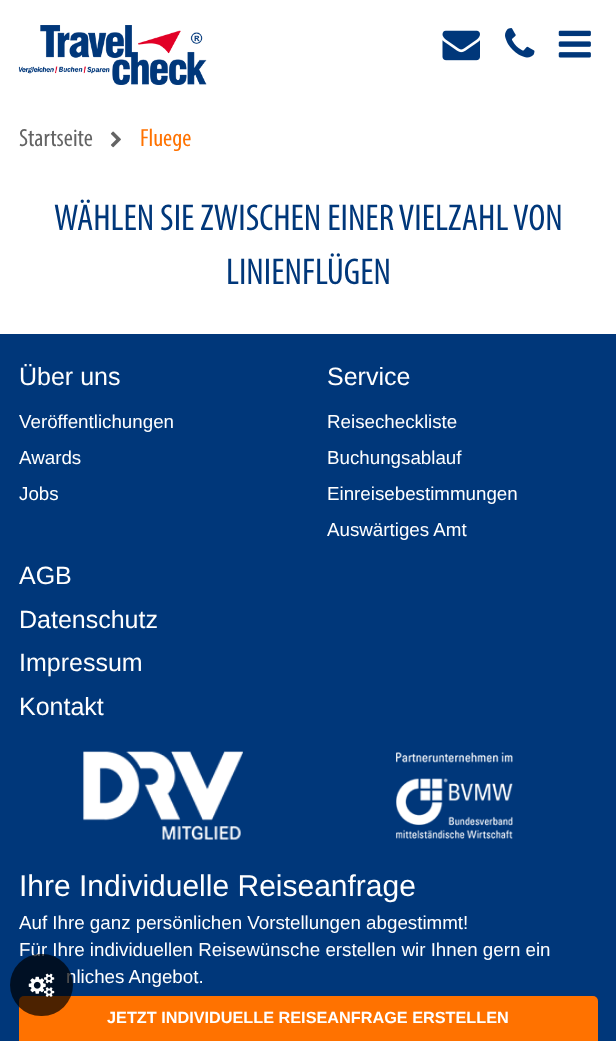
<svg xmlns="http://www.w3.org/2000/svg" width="616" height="1041">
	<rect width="100%" height="100%" fill="#FFFFFF" />
	<image x="18" y="25" width="189" height="60" href="assets/img1.png" />
	<image x="442" y="30" width="38" height="31" href="assets/img2.png" />
	<image x="505" y="28" width="30" height="30" href="assets/img3.png" />
	<image x="558" y="30" width="33" height="28" href="assets/img4.png" />
	<text x="19" y="146" font-family="Myriad" font-size="25" fill="#646464">Startseite</text>
	<image x="110" y="131" width="11" height="17" href="assets/img5.png" />
	<text x="140" y="146" font-family="Myriad" font-size="25" fill="#FF7200">Fluege</text>
	<g font-family="Myriad" font-size="37.5" fill="#00377A">
		<text x="54" y="230">WÄHLEN SIE ZWISCHEN EINER VIELZAHL VON</text>
		<text x="226" y="284">LINIENFLÜGEN</text>
	</g>
	<rect x="0" y="334" width="616" height="707" fill="#00377A" />
	<text x="19" y="385" font-family="Liberation Sans" font-size="25" fill="#FFFFFF">Über uns</text>
	<g font-family="Liberation Sans" font-size="18.75" fill="#FFFFFF">
		<text x="19" y="428">Veröffentlichungen</text>
		<text x="19" y="464">Awards</text>
		<text x="19" y="500">Jobs</text>
	</g>
	<text x="327" y="385" font-family="Liberation Sans" font-size="25" fill="#FFFFFF">Service</text>
	<g font-family="Liberation Sans" font-size="18.75" fill="#FFFFFF">
		<text x="327" y="428">Reisecheckliste</text>
		<text x="327" y="464">Buchungsablauf</text>
		<text x="327" y="500">Einreisebestimmungen</text>
		<text x="327" y="536">Auswärtiges Amt</text>
	</g>
	<g font-family="Liberation Sans" font-size="25" fill="#FFFFFF">
		<text x="19" y="584">AGB</text>
		<text x="19" y="628">Datenschutz</text>
		<text x="19" y="671">Impressum</text>
		<text x="19" y="715">Kontakt</text>
	</g>
	<image x="83" y="751" width="160" height="89" href="assets/img6.png" />
	<image x="396" y="752" width="117" height="87" href="assets/img7.png" />
	<text x="19" y="896" font-family="Liberation Sans" font-size="30" fill="#FFFFFF">Ihre Individuelle Reiseanfrage</text>
	<g font-family="Liberation Sans" font-size="18.75" fill="#FFFFFF">
		<text x="19" y="929">Auf Ihre ganz persönlichen Vorstellungen abgestimmt!</text>
		<text x="19" y="956">Für Ihre individuellen Reisewünsche erstellen wir Ihnen gern ein</text>
		<text x="66" y="983">nliches Angebot.</text>
	</g>
	<rect x="19" y="996" width="579" height="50" rx="5" fill="#FF7200" />
	<text x="107" y="1023" font-family="Liberation Sans" font-size="16.25" font-weight="700" fill="#FFFFFF">JETZT INDIVIDUELLE REISEANFRAGE ERSTELLEN</text>
	<rect x="10" y="954" width="63" height="62" rx="31" fill="#000000" fill-opacity="0.7" />
	<image x="28" y="973" width="27" height="24" href="assets/img8.png" />
</svg>
